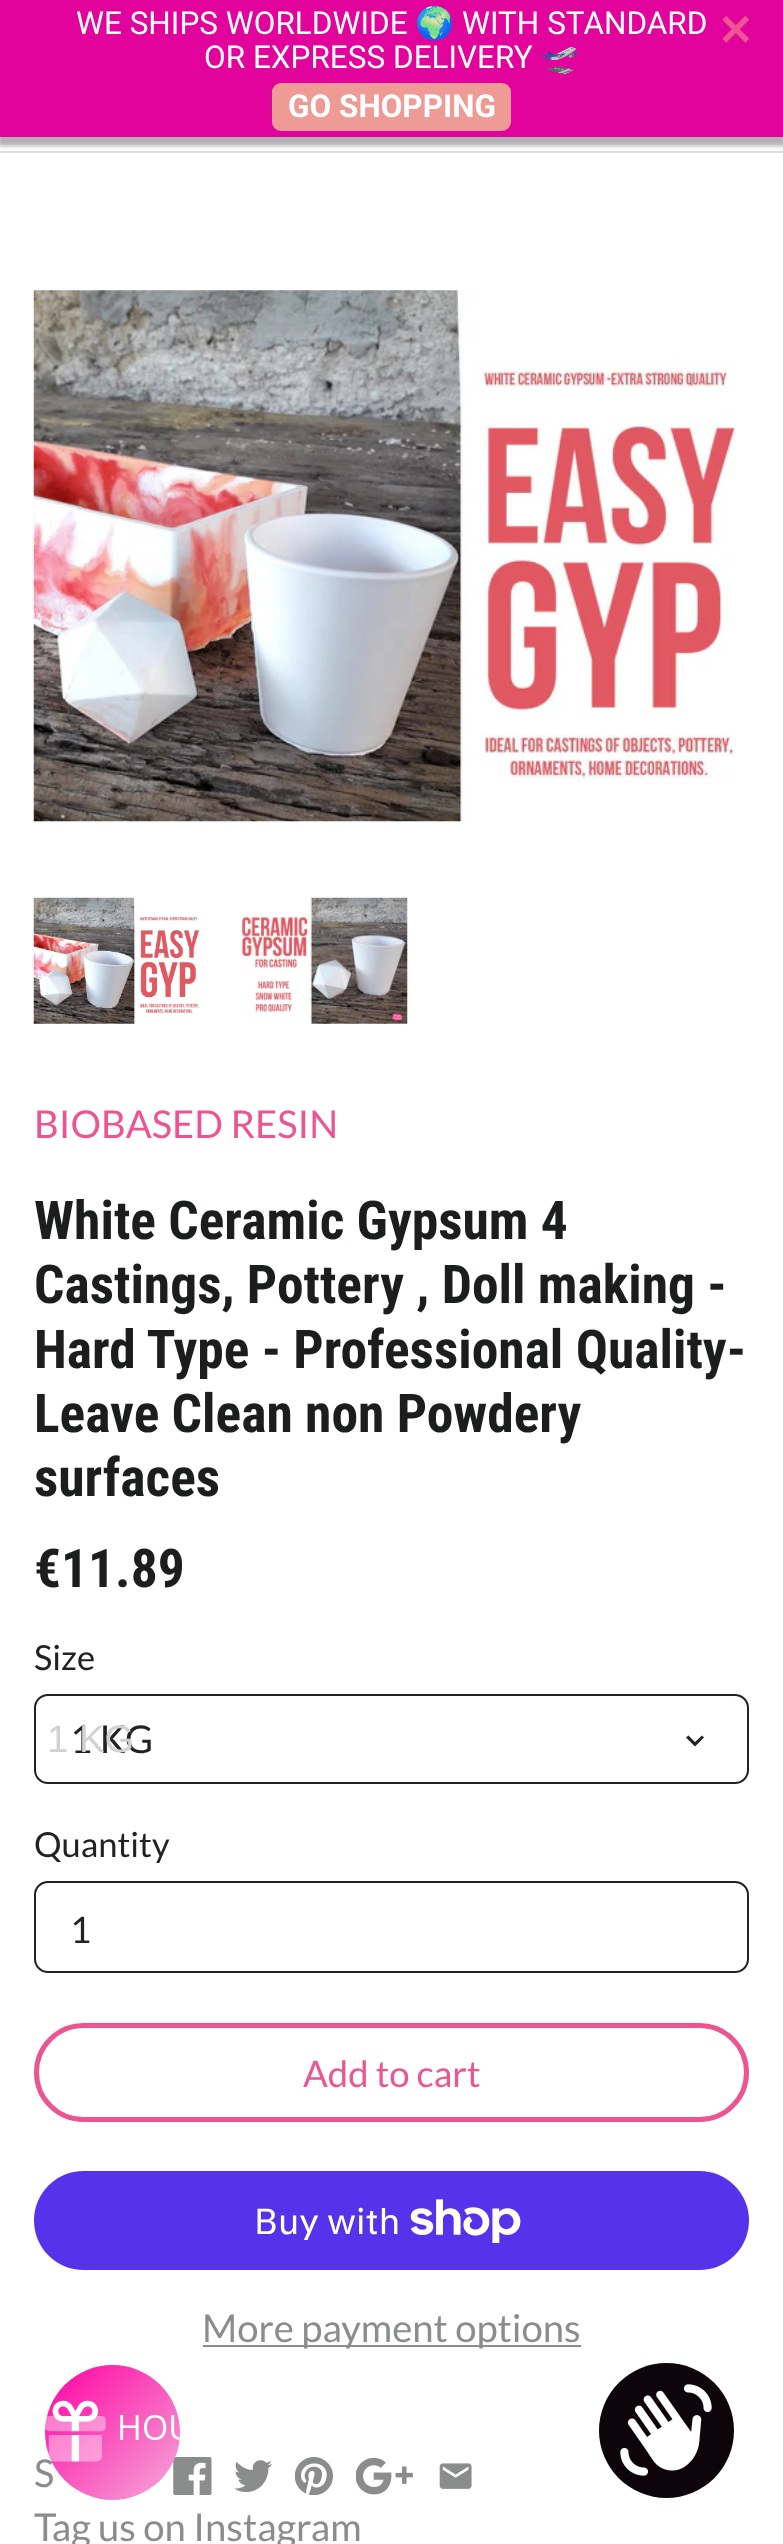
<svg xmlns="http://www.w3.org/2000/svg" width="783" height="2544">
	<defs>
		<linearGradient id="g1" gradientUnits="userSpaceOnUse" x1="45" y1="2365" x2="180" y2="2500"><stop offset="0" stop-color="#FF00A2" /><stop offset="1" stop-color="#F5ABDA" /></linearGradient>
	</defs>
	<rect width="100%" height="100%" fill="#FFFFFF" />
	<rect x="0" y="151" width="783" height="2" fill="#DDDDDD" />
	<rect x="-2" y="5" width="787" height="141" fill="#000000" fill-opacity="0.3" filter="blur(2px)" />
	<rect x="0" y="0" width="783" height="137" fill="#E1039C" />
	<text x="76" y="34" font-family="Roboto" font-size="31.5" fill="#FFFFFF">WE SHIPS WORLDWIDE</text>
	<text x="415" y="34" font-family="Noto Color Emoji" font-size="31.5" fill="#FFFFFF">🌍</text>
	<g font-family="Roboto" font-size="31.5" fill="#FFFFFF">
		<text x="462" y="34">WITH STANDARD</text>
		<text x="204" y="68">OR EXPRESS DELIVERY</text>
	</g>
	<text x="540" y="68" font-family="Noto Color Emoji" font-size="31.5" fill="#FFFFFF">🛫</text>
	<rect x="272" y="83" width="239" height="48" rx="9" fill="#EE9B95" />
	<text x="288" y="117" font-family="Roboto" font-size="31.5" font-weight="700" fill="#FFFFFF">GO SHOPPING</text>
	<image x="722" y="16" width="27" height="27" href="assets/img1.png" />
	<image x="33" y="290" width="703" height="532" href="assets/img2.png" />
	<image x="33" y="897" width="167" height="127" href="assets/img3.png" />
	<image x="240" y="897" width="168" height="127" href="assets/img4.png" />
	<text x="34" y="1138" font-family="Lato" font-size="38.25" fill="#ED5592">BIOBASED RESIN</text>
	<g font-family="Roboto Condensed" font-size="53.5" font-weight="700" fill="#1C1D1D">
		<text x="34" y="1239">White Ceramic Gypsum 4</text>
		<text x="34" y="1303">Castings, Pottery , Doll making -</text>
		<text x="34" y="1368">Hard Type - Professional Quality-</text>
		<text x="34" y="1432">Leave Clean non Powdery</text>
		<text x="34" y="1496">surfaces</text>
		<text x="34" y="1587">€11.89</text>
	</g>
	<text x="34" y="1670" font-family="Lato" font-size="34.5" fill="#222222">Size</text>
	<rect x="35" y="1695" width="713" height="88" rx="13" fill="none" stroke="#222222" stroke-width="2" />
	<text x="70" y="1753" font-family="Lato" font-size="38.25" fill="#222222">1 KG</text>
	<text x="47" y="1752" font-family="Liberation Sans" font-size="38.25" fill="#D1D1D1">1 KG</text>
	<path d="M688.5 1735.5L695 1742L702 1735.5L704 1737.5L695 1746.5L686 1737.5Z" fill="#222222" />
	<text x="34" y="1857" font-family="Lato" font-size="34.5" fill="#222222">Quantity</text>
	<rect x="35" y="1882" width="713" height="90" rx="13" fill="none" stroke="#222222" stroke-width="2" />
	<text x="70" y="1943" font-family="Lato" font-size="36.5" fill="#222222">1</text>
	<rect x="36.5" y="2025.5" width="710" height="94" rx="47" fill="none" stroke="#ED5592" stroke-width="5" />
	<text x="303" y="2087" font-family="Lato" font-size="36.5" fill="#ED5592">Add to cart</text>
	<rect x="34" y="2171" width="715" height="99" rx="49.5" fill="#5433EB" />
	<text x="254" y="2234" font-family="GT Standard" font-size="36" fill="#FFFFFF">Buy with</text>
	<image x="410" y="2199" width="111" height="44" href="assets/img5.png" />
	<rect x="203" y="2345" width="378" height="2" fill="#8B8C8C" />
	<g font-family="Lato" font-size="38.25" fill="#8B8C8C">
		<text x="202" y="2342">More payment options</text>
		<text x="34" y="2487">S</text>
	</g>
	<image x="173" y="2457" width="39" height="38" href="assets/img6.png" />
	<image x="234" y="2460" width="38" height="33" href="assets/img7.png" />
	<image x="295" y="2457" width="38" height="38" href="assets/img8.png" />
	<image x="356" y="2457" width="57" height="38" href="assets/img9.png" />
	<image x="439" y="2463" width="33" height="26" href="assets/img10.png" />
	<text x="34" y="2541" font-family="Lato" font-size="38.25" fill="#8B8C8C">Tag us on Instagram</text>
	<circle cx="112.5" cy="2432.5" r="67.5" fill="url(#g1)" />
	<image x="45" y="2400" width="135" height="62" href="assets/img11.png" />
	<circle cx="666.5" cy="2430.5" r="67.5" fill="#0D0509" />
	<image x="620" y="2384" width="92" height="92" href="assets/img12.png" />
</svg>
